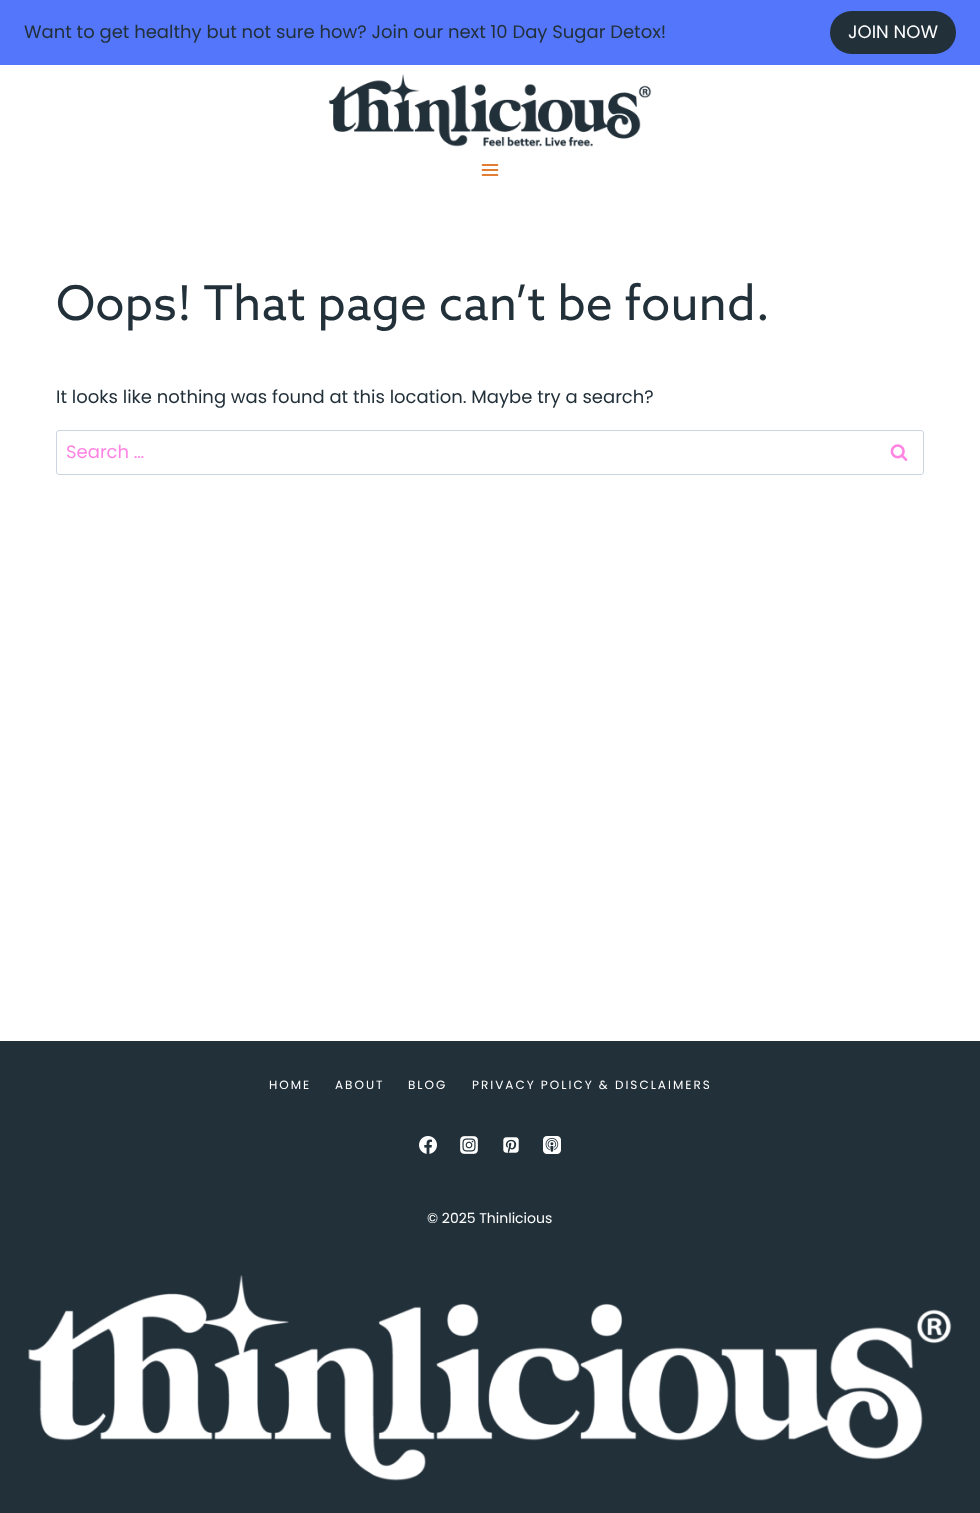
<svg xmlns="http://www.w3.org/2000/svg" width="980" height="1513">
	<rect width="100%" height="100%" fill="#FFFFFF" />
	<rect x="0" y="0" width="980" height="65" fill="#5376FA" />
	<text x="24" y="38" font-family="Poppins" font-size="18" fill="#22303A">Want to get healthy but not sure how? Join our next 10 Day Sugar Detox!</text>
	<rect x="830" y="11" width="126" height="43" rx="21.5" fill="#22303A" />
	<text x="848" y="38" font-family="Poppins" font-size="18" fill="#FFFFFF">JOIN NOW</text>
	<image x="328" y="74" width="324" height="73" href="assets/img1.png" />
	<image x="481" y="164" width="18" height="12" href="assets/img2.png" />
	<text x="56" y="320" font-family="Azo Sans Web" font-size="48" fill="#22303A">Oops! That page can’t be found.</text>
	<text x="56" y="403" font-family="Poppins" font-size="18" fill="#22303A">It looks like nothing was found at this location. Maybe try a search?</text>
	<rect x="56.5" y="430.5" width="867" height="44" rx="2.5" fill="none" stroke="#CBD5E0" />
	<text x="66" y="458" font-family="Poppins" font-size="18" fill="#FF84E3">Search …</text>
	<image x="890" y="444" width="18" height="17" href="assets/img3.png" />
	<rect x="0" y="1041" width="980" height="472" fill="#22303A" />
	<g font-family="Poppins" font-size="12" letter-spacing="2" fill="#FFFFFF">
		<text x="269" y="1089">HOME</text>
		<text x="335" y="1089">ABOUT</text>
		<text x="408" y="1089">BLOG</text>
		<text x="472" y="1089">PRIVACY POLICY &amp; DISCLAIMERS</text>
	</g>
	<image x="419" y="1136" width="18" height="18" href="assets/img4.png" />
	<image x="460" y="1136" width="18" height="18" href="assets/img5.png" />
	<image x="503" y="1137" width="16" height="16" href="assets/img6.png" />
	<image x="543" y="1136" width="18" height="18" href="assets/img7.png" />
	<text x="427" y="1223" font-family="Poppins" font-size="14" fill="#FFFFFF">© 2025 Thinlicious</text>
	<image x="28" y="1275" width="924" height="206" href="assets/img8.png" />
</svg>
